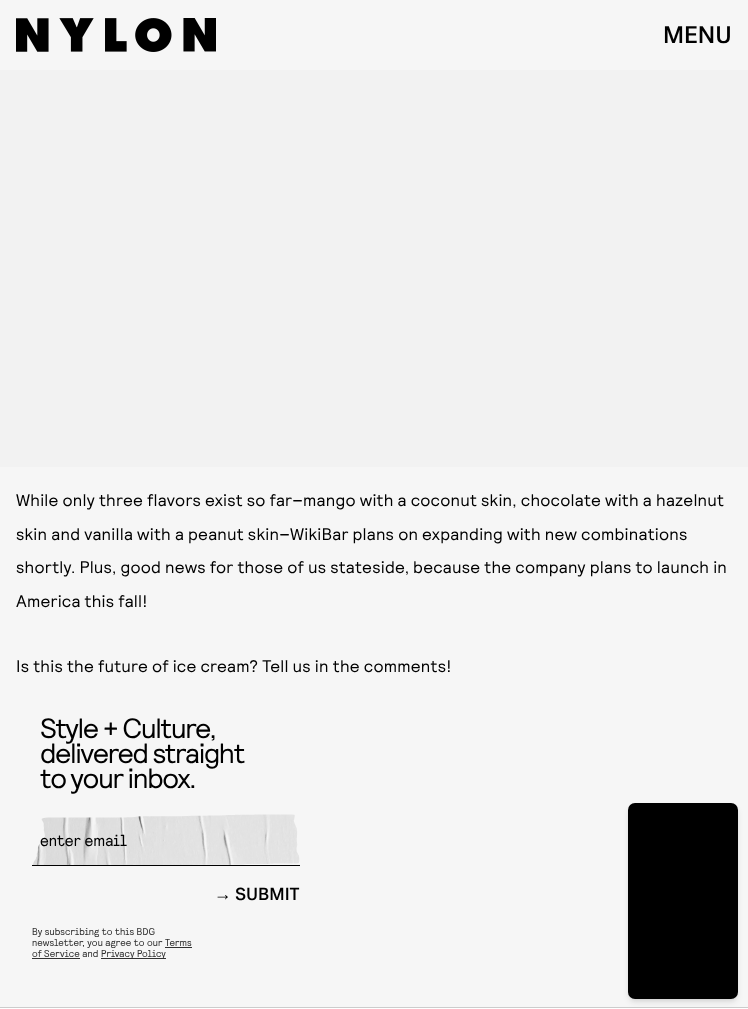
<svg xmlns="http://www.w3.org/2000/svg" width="748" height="1009">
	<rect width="100%" height="100%" fill="#FFFFFF" />
	<rect x="0" y="0" width="748" height="70" fill="#F6F6F6" />
	<image x="16" y="18" width="200" height="34" href="assets/img1.png" />
	<text x="663" y="43" font-family="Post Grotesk" font-size="24" font-weight="500" fill="#000000">MENU</text>
	<rect x="0" y="467" width="748" height="540" fill="#F6F6F6" />
	<rect x="0" y="70" width="748" height="397" fill="#F2F2F2" />
	<g font-family="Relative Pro" font-size="16.8" letter-spacing="0.2" fill="#000000">
		<text x="16" y="506">While only three flavors exist so far–mango with a coconut skin, chocolate with a hazelnut</text>
		<text x="16" y="540">skin and vanilla with a peanut skin–WikiBar plans on expanding with new combinations</text>
		<text x="16" y="573">shortly. Plus, good news for those of us stateside, because the company plans to launch in</text>
		<text x="16" y="607">America this fall!</text>
		<text x="16" y="672">Is this the future of ice cream? Tell us in the comments!</text>
	</g>
	<g font-family="Relative Pro" font-size="28" letter-spacing="-1.4" fill="#000000">
		<text x="40" y="738">Style + Culture,</text>
		<text x="40" y="763">delivered straight</text>
		<text x="40" y="788">to your inbox.</text>
	</g>
	<image x="32" y="814" width="268" height="51" href="assets/img2.png" />
	<rect x="32" y="865" width="268" height="1" fill="#000000" />
	<text x="40" y="846" font-family="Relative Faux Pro" font-size="16" fill="#000000">enter email</text>
	<text x="214" y="900" font-family="Liberation Sans" font-size="17.5" fill="#000000">→</text>
	<text x="235" y="900" font-family="Post Grotesk" font-size="17.5" font-weight="500" fill="#000000">SUBMIT</text>
	<g font-family="Relative Faux Pro" font-size="10" letter-spacing="0.1" fill="#313131">
		<text x="32" y="935">By subscribing to this BDG</text>
		<text x="32" y="946">newsletter, you agree to our Terms</text>
		<text x="32" y="957">of Service and</text>
	</g>
	<rect x="165" y="947" width="27" height="1" fill="#313131" />
	<rect x="32" y="958" width="48" height="1" fill="#313131" />
	<rect x="101" y="958" width="65" height="1" fill="#313131" />
	<text x="101" y="957" font-family="Relative Faux Pro" font-size="10" letter-spacing="0.1" fill="#313131">Privacy Policy</text>
	<rect x="630" y="807" width="106" height="192" rx="5" fill="#000000" fill-opacity="0.1" filter="blur(2px)" />
	<rect x="0" y="1007" width="748" height="1" fill="#CCCCCC" />
	<rect x="629" y="808" width="108" height="194" rx="6" fill="#000000" fill-opacity="0.1" filter="blur(3px)" />
	<rect x="628" y="803" width="110" height="196" rx="7" fill="#000000" />
</svg>
